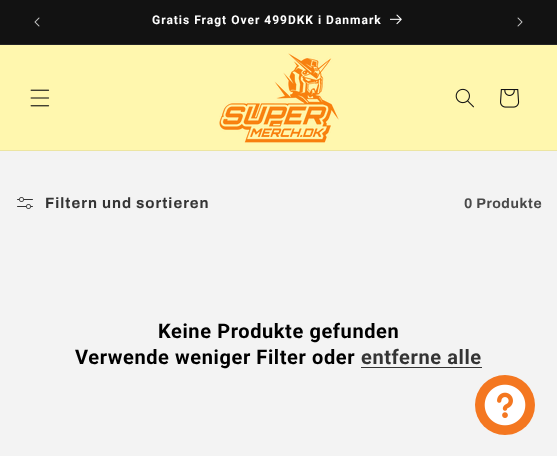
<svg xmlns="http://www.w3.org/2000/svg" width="557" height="456">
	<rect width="100%" height="100%" fill="#F3F3F3" />
	<rect x="0" y="0" width="557" height="44" fill="#121212" />
	<rect x="0" y="44" width="557" height="1" fill="#252525" />
	<image x="34" y="17" width="6" height="10" href="assets/img1.png" />
	<text x="152" y="24" font-family="Roboto" font-size="12" font-weight="700" letter-spacing="1" fill="#FFFFFF">Gratis Fragt Over 499DKK i Danmark</text>
	<image x="390" y="14" width="12" height="11" href="assets/img2.png" />
	<image x="517" y="17" width="6" height="10" href="assets/img3.png" />
	<rect x="0" y="45" width="557" height="105" fill="#FFF7AE" />
	<rect x="0" y="150" width="557" height="1" fill="#ECE5A2" />
	<image x="30" y="89" width="20" height="18" href="assets/img4.png" />
	<image x="219" y="53" width="120" height="90" href="assets/img5.png" />
	<image x="455" y="88" width="19" height="20" href="assets/img6.png" />
	<image x="500" y="89" width="20" height="19" href="assets/img7.png" />
	<image x="17" y="197" width="16" height="12" href="assets/img8.png" />
	<text x="45" y="208" font-family="Archivo" font-size="15" font-weight="700" letter-spacing="1" fill="#343434">Filtern und sortieren</text>
	<text x="464" y="208" font-family="Archivo" font-size="14" font-weight="700" letter-spacing="0.6" fill="#494949">0 Produkte</text>
	<g font-family="Roboto" font-size="20" font-weight="700" letter-spacing="0.6" fill="#000000">
		<text x="158" y="338">Keine Produkte gefunden</text>
		<text x="75" y="364">Verwende weniger Filter oder</text>
	</g>
	<text x="361" y="364" font-family="Roboto" font-size="20" font-weight="700" letter-spacing="0.6" fill="#343434">entferne alle</text>
	<rect x="361" y="367" width="121" height="1" fill="#343434" />
	<circle cx="505" cy="405" r="30" fill="#F47720" />
	<image x="484" y="384" width="42" height="42" href="assets/img9.png" />
</svg>
